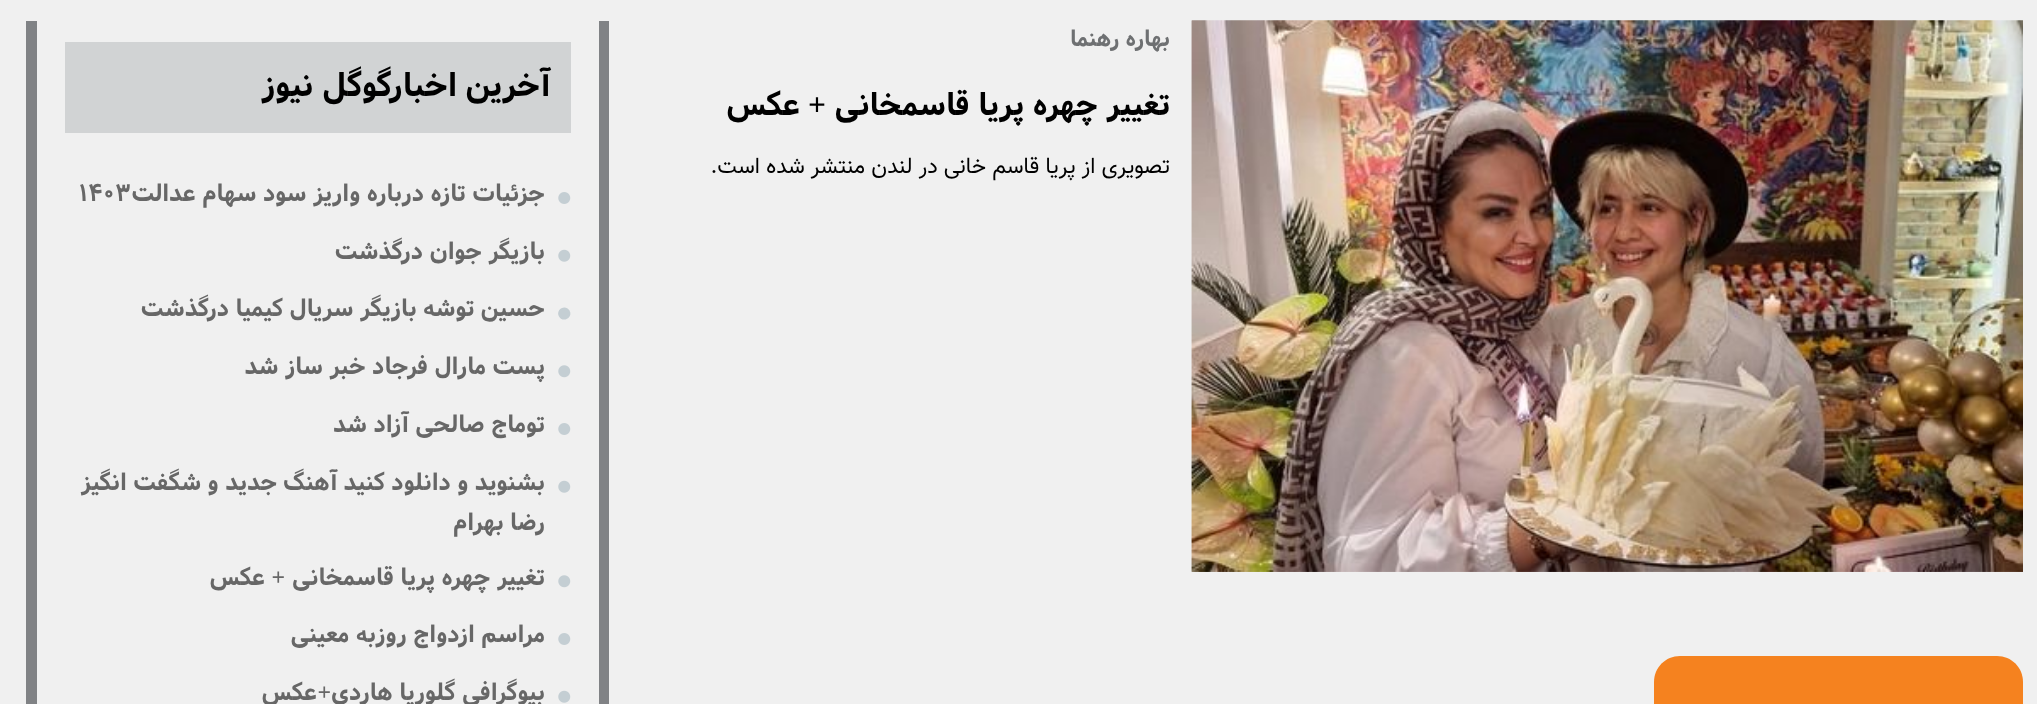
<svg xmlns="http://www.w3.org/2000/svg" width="2037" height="704">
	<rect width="100%" height="100%" fill="#F0F0F0" />
	<image x="1191" y="20" width="832" height="552" href="assets/img1.png" />
	<image x="1191" y="20" width="832" height="552" href="assets/img2.png" />
	<text x="1170" y="46" font-family="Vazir" font-size="22.4" font-weight="700" direction="rtl" fill="#6E7072">بهاره رهنما</text>
	<text x="1170" y="115" font-family="Vazir" font-size="31.5" font-weight="700" direction="rtl" fill="#000000">تغییر چهره پریا قاسمخانی</text>
	<text x="826" y="115" font-family="Liberation Serif" font-size="31.5" font-weight="700" direction="rtl" fill="#000000">+</text>
	<text x="800" y="115" font-family="Vazir" font-size="31.5" font-weight="700" direction="rtl" fill="#000000">عکس</text>
	<text x="1170" y="173" font-family="Vazir" font-size="22.4" direction="rtl" fill="#000000">تصویری از پریا قاسم خانی در لندن منتشر شده است.</text>
	<path d="M1680 656H1997C2011.5 656 2023 667.5 2023 682V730H1654V682C1654 667.5 1665.5 656 1680 656Z" fill="#F5821F" />
	<rect x="599" y="21" width="10" height="683" fill="#808285" />
	<rect x="26" y="21" width="11" height="683" fill="#808285" />
	<rect x="65" y="42" width="506" height="91" fill="#D1D3D4" />
	<text x="550" y="96" font-family="Vazir" font-size="32.75" font-weight="700" direction="rtl" fill="#000000">آخرین اخبارگوگل نیوز</text>
	<image x="558" y="192" width="13" height="12" href="assets/img3.png" />
	<text x="545" y="201" font-family="Vazir" font-size="23.75" font-weight="700" direction="rtl" fill="#676767">جزئیات تازه درباره واریز سود سهام عدالت</text>
	<text x="79" y="201" font-family="Vazir" font-size="23.75" font-weight="700" fill="#676767">۱۴۰۳</text>
	<image x="558" y="249" width="13" height="13" href="assets/img4.png" />
	<text x="545" y="259" font-family="Vazir" font-size="23.75" font-weight="700" direction="rtl" fill="#676767">بازیگر جوان درگذشت</text>
	<path d="M569.5 310.5C573.5 317.5 563 323.5 559 316.5C555 309.5 565.5 303.5 569.5 310.5Z" fill="#C4CED3" />
	<text x="545" y="316" font-family="Vazir" font-size="23.75" font-weight="700" direction="rtl" fill="#676767">حسین توشه بازیگر سریال کیمیا درگذشت</text>
	<image x="558" y="365" width="13" height="13" href="assets/img5.png" />
	<text x="545" y="374" font-family="Vazir" font-size="23.75" font-weight="700" direction="rtl" fill="#676767">پست مارال فرجاد خبر ساز شد</text>
	<image x="558" y="423" width="13" height="12" href="assets/img3.png" />
	<text x="545" y="432" font-family="Vazir" font-size="23.75" font-weight="700" direction="rtl" fill="#676767">توماج صالحی آزاد شد</text>
	<image x="558" y="480" width="13" height="13" href="assets/img4.png" />
	<g font-family="Vazir" font-size="23.75" font-weight="700" direction="rtl" fill="#676767">
		<text x="545" y="490">بشنوید و دانلود کنید آهنگ جدید و شگفت انگیز</text>
		<text x="545" y="530">رضا بهرام</text>
	</g>
	<image x="558" y="575" width="13" height="13" href="assets/img5.png" />
	<text x="545" y="585" font-family="Vazir" font-size="23.75" font-weight="700" direction="rtl" fill="#676767">تغییر چهره پریا قاسمخانی</text>
	<text x="285" y="585" font-family="Liberation Serif" font-size="23.75" font-weight="700" direction="rtl" fill="#676767">+</text>
	<text x="265" y="585" font-family="Vazir" font-size="23.75" font-weight="700" direction="rtl" fill="#676767">عکس</text>
	<image x="558" y="633" width="13" height="12" href="assets/img3.png" />
	<text x="545" y="642" font-family="Vazir" font-size="23.75" font-weight="700" direction="rtl" fill="#676767">مراسم ازدواج روزبه معینی</text>
	<image x="558" y="690" width="13" height="13" href="assets/img4.png" />
	<text x="545" y="700" font-family="Vazir" font-size="23.75" font-weight="700" direction="rtl" fill="#676767">بیوگرافی گلوریا هاردی</text>
	<text x="331" y="700" font-family="Liberation Serif" font-size="23.75" font-weight="700" direction="rtl" fill="#676767">+</text>
	<text x="317" y="700" font-family="Vazir" font-size="23.75" font-weight="700" direction="rtl" fill="#676767">عکس</text>
</svg>
